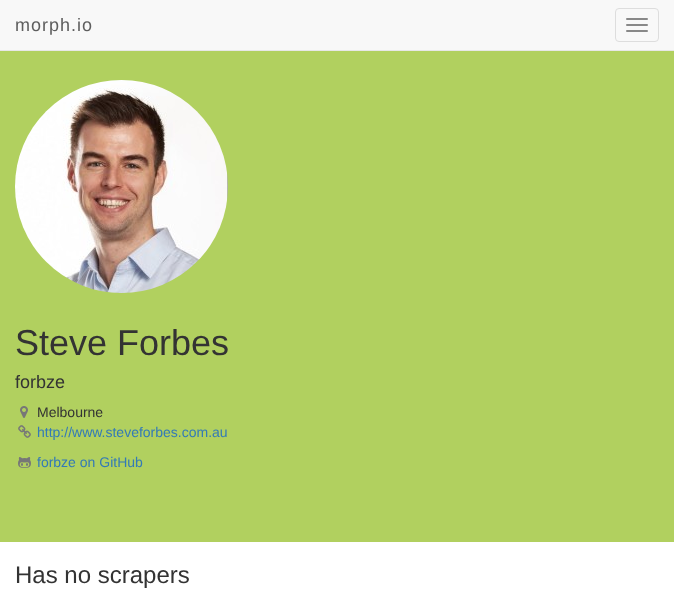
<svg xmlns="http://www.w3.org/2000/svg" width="674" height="599">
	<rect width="100%" height="100%" fill="#FFFFFF" />
	<rect x="0" y="0" width="674" height="50" fill="#F8F8F8" />
	<rect x="0" y="50" width="674" height="1" fill="#E7E7E7" />
	<text x="15" y="31" font-family="Liberation Sans" font-size="18" letter-spacing="1" fill="#5E5E5E">morph.io</text>
	<rect x="615.5" y="8.5" width="43" height="33" rx="3.5" fill="none" stroke="#DDDDDD" />
	<rect x="626" y="18" width="22" height="2" rx="1" fill="#888888" />
	<rect x="626" y="24" width="22" height="2" rx="1" fill="#888888" />
	<rect x="626" y="30" width="22" height="2" rx="1" fill="#888888" />
	<rect x="0" y="51" width="674" height="491" fill="#B1D05F" />
	<image x="15" y="80" width="213" height="213" href="assets/img1.png" />
	<text x="15" y="355" font-family="Liberation Sans" font-size="36" fill="#333333">Steve Forbes</text>
	<text x="15" y="388" font-family="Liberation Sans" font-size="18" fill="#333333">forbze</text>
	<image x="20" y="406" width="8" height="12" href="assets/img2.png" />
	<text x="37" y="417" font-family="Liberation Sans" font-size="14" fill="#333333">Melbourne</text>
	<image x="18" y="425" width="13" height="13" href="assets/img3.png" />
	<text x="37" y="437" font-family="Liberation Sans" font-size="14" fill="#337AB7">http://www.steveforbes.com.au</text>
	<image x="18" y="457" width="13" height="11" href="assets/img4.png" />
	<text x="37" y="467" font-family="Liberation Sans" font-size="14" fill="#337AB7">forbze on GitHub</text>
	<text x="15" y="583" font-family="Liberation Sans" font-size="24" fill="#333333">Has no scrapers</text>
</svg>
